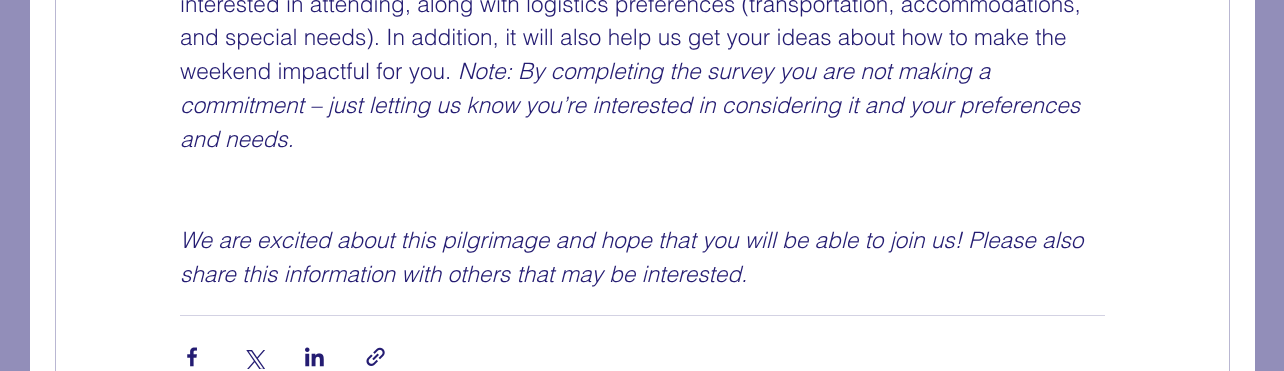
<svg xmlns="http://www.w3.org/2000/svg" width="1284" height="371">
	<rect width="100%" height="100%" fill="#928EB9" />
	<rect x="30" y="0" width="1225" height="371" fill="#FFFFFF" />
	<rect x="55.5" y="-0.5" width="1174" height="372" fill="none" stroke="#B9B7D2" />
	<g font-family="helvetica" font-size="22.5" font-weight="300" fill="#241C72">
		<text x="180" y="12">interested in attending, along with logistics preferences (transportation, accommodations,</text>
		<text x="180" y="45">and special needs). In addition, it will also help us get your ideas about how to make the</text>
		<text x="180" y="79">weekend impactful for you.</text>
	</g>
	<g font-family="helvetica" font-size="22.5" font-weight="300" font-style="italic" fill="#241C72">
		<text x="458" y="79">Note: By completing the survey you are not making a</text>
		<text x="180" y="113">commitment – just letting us know you’re interested in considering it and your preferences</text>
		<text x="180" y="147">and needs.</text>
		<text x="180" y="248">We are excited about this pilgrimage and hope that you will be able to join us! Please also</text>
		<text x="180" y="282">share this information with others that may be interested.</text>
	</g>
	<rect x="180" y="315" width="925" height="1" fill="#D3D2E3" />
	<image x="187" y="347" width="10" height="20" href="assets/img1.png" />
	<image x="246" y="350" width="19" height="19" href="assets/img2.png" />
	<image x="305" y="347" width="19" height="20" href="assets/img3.png" />
	<image x="366" y="347" width="19" height="19" href="assets/img4.png" />
</svg>
